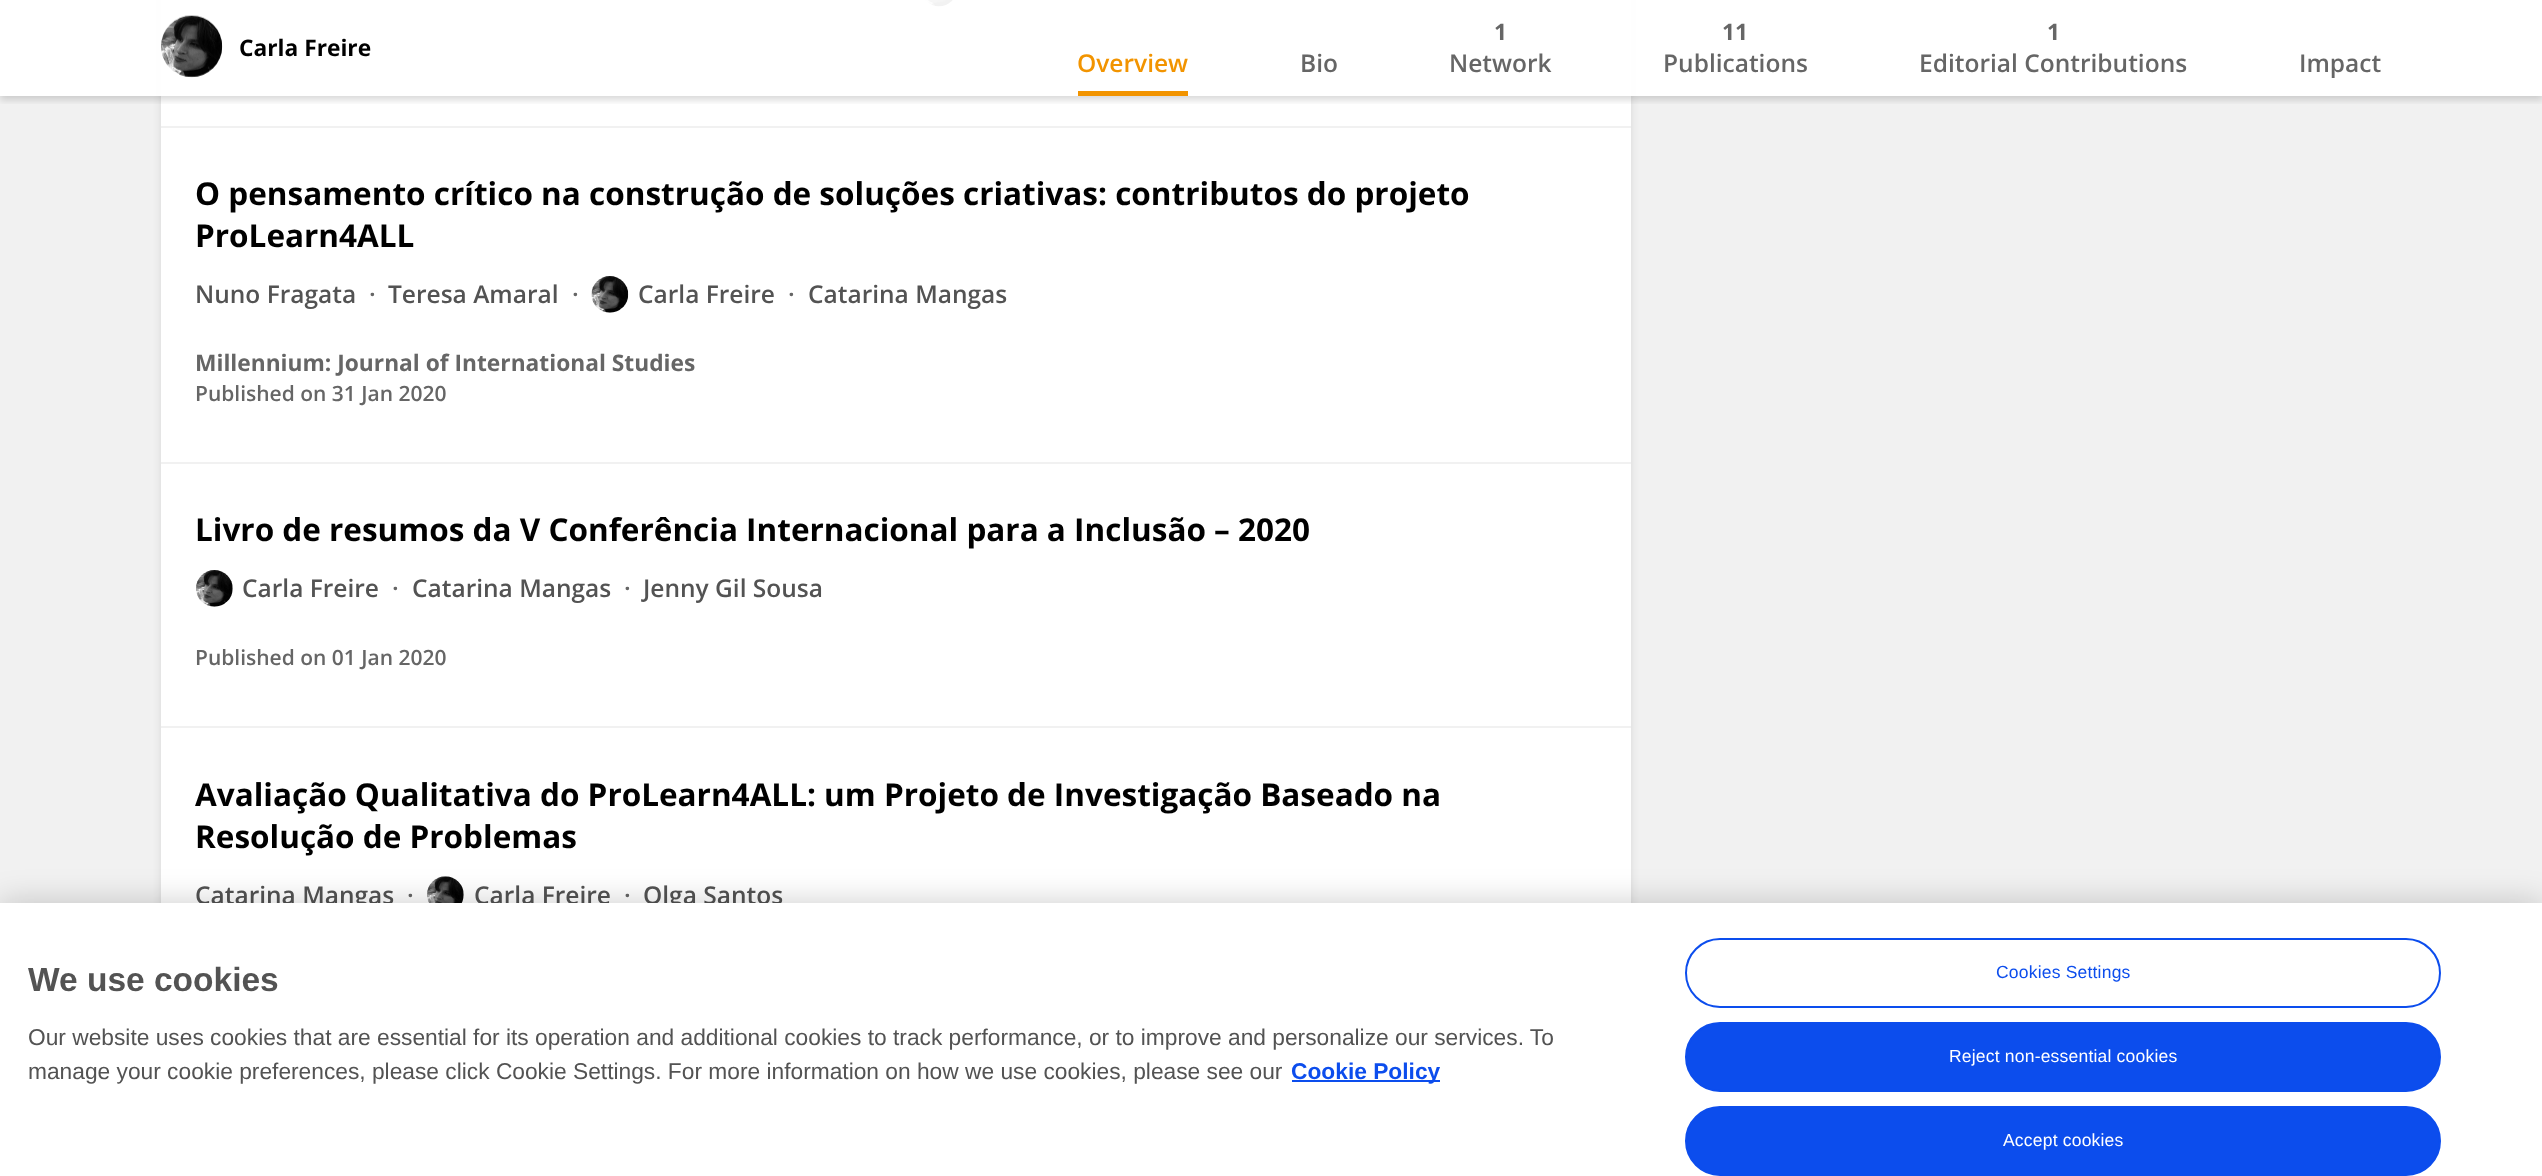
<svg xmlns="http://www.w3.org/2000/svg" width="2542" height="1176">
	<defs>
		<clipPath id="clip1"><rect x="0" y="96" width="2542" height="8" /></clipPath>
	</defs>
	<rect width="100%" height="100%" fill="#F1F1F1" />
	<rect x="161" y="-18" width="1470" height="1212" rx="4" fill="#000000" fill-opacity="0.1" filter="blur(4.5px)" />
	<rect x="161" y="0" width="1470" height="903" fill="#FFFFFF" />
	<image x="925" y="0" width="28" height="7" href="assets/img2.png" />
	<g clip-path="url(#clip1)">
		<rect x="0" y="4" width="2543" height="96" fill="#000000" fill-opacity="0.15" filter="blur(3.5px)" />
	</g>
	<rect x="0" y="0" width="2542" height="96" fill="#FFFFFF" fill-opacity="0.95" />
	<image x="161" y="15" width="62" height="63" href="assets/img1.png" />
	<text x="239" y="56" font-family="Open Sans" font-size="22.75" font-weight="700" fill="#000000">Carla Freire</text>
	<rect x="1078" y="91" width="110" height="5" fill="#F29400" />
	<text x="1077" y="72" font-family="Open Sans" font-size="24.5" font-weight="600" fill="#F29400">Overview</text>
	<text x="1300" y="72" font-family="Open Sans" font-size="24.5" font-weight="600" fill="#666666">Bio</text>
	<text x="1494" y="40" font-family="Open Sans" font-size="22.75" font-weight="700" fill="#666666">1</text>
	<text x="1449" y="72" font-family="Open Sans" font-size="24.5" font-weight="600" fill="#666666">Network</text>
	<text x="1722" y="40" font-family="Open Sans" font-size="22.75" font-weight="700" fill="#666666">11</text>
	<text x="1663" y="72" font-family="Open Sans" font-size="24.5" font-weight="600" fill="#666666">Publications</text>
	<text x="2047" y="40" font-family="Open Sans" font-size="22.75" font-weight="700" fill="#666666">1</text>
	<g font-family="Open Sans" font-size="24.5" font-weight="600" fill="#666666">
		<text x="1919" y="72">Editorial Contributions</text>
		<text x="2299" y="72">Impact</text>
	</g>
	<rect x="161" y="126" width="1470" height="2" fill="#F1F1F1" />
	<rect x="161" y="462" width="1470" height="2" fill="#F1F1F1" />
	<g font-family="Open Sans" font-size="31.5" font-weight="700" fill="#000000">
		<text x="195" y="205">O pensamento crítico na construção de soluções criativas: contributos do projeto</text>
		<text x="195" y="247">ProLearn4ALL</text>
	</g>
	<text x="195" y="303" font-family="Open Sans" font-size="24.5" font-weight="600" fill="#535353">Nuno Fragata</text>
	<text x="369" y="303" font-family="Open Sans" font-size="24.5" font-weight="600" fill="#666666">·</text>
	<text x="388" y="303" font-family="Open Sans" font-size="24.5" font-weight="600" fill="#535353">Teresa Amaral</text>
	<text x="572" y="303" font-family="Open Sans" font-size="24.5" font-weight="600" fill="#666666">·</text>
	<image x="591" y="276" width="38" height="37" href="assets/img3.png" />
	<text x="638" y="303" font-family="Open Sans" font-size="24.5" font-weight="600" fill="#535353">Carla Freire</text>
	<text x="788" y="303" font-family="Open Sans" font-size="24.5" font-weight="600" fill="#666666">·</text>
	<text x="808" y="303" font-family="Open Sans" font-size="24.5" font-weight="600" fill="#535353">Catarina Mangas</text>
	<text x="195" y="371" font-family="Open Sans" font-size="22.75" font-weight="700" fill="#666666">Millennium: Journal of International Studies</text>
	<text x="195" y="401" font-family="Open Sans" font-size="21" font-weight="600" fill="#666666">Published on 31 Jan 2020</text>
	<rect x="161" y="726" width="1470" height="2" fill="#F1F1F1" />
	<text x="195" y="541" font-family="Open Sans" font-size="31.5" font-weight="700" fill="#000000">Livro de resumos da V Conferência Internacional para a Inclusão – 2020</text>
	<image x="196" y="570" width="37" height="37" href="assets/img4.png" />
	<text x="242" y="597" font-family="Open Sans" font-size="24.5" font-weight="600" fill="#535353">Carla Freire</text>
	<text x="392" y="597" font-family="Open Sans" font-size="24.5" font-weight="600" fill="#666666">·</text>
	<text x="412" y="597" font-family="Open Sans" font-size="24.5" font-weight="600" fill="#535353">Catarina Mangas</text>
	<text x="624" y="597" font-family="Open Sans" font-size="24.5" font-weight="600" fill="#666666">·</text>
	<text x="643" y="597" font-family="Open Sans" font-size="24.5" font-weight="600" fill="#535353">Jenny Gil Sousa</text>
	<text x="195" y="665" font-family="Open Sans" font-size="21" font-weight="600" fill="#666666">Published on 01 Jan 2020</text>
	<g font-family="Open Sans" font-size="31.5" font-weight="700" fill="#000000">
		<text x="195" y="806">Avaliação Qualitativa do ProLearn4ALL: um Projeto de Investigação Baseado na</text>
		<text x="195" y="848">Resolução de Problemas</text>
	</g>
	<text x="195" y="904" font-family="Open Sans" font-size="24.5" font-weight="600" fill="#535353">Catarina Mangas</text>
	<text x="407" y="904" font-family="Open Sans" font-size="24.5" font-weight="600" fill="#666666">·</text>
	<image x="427" y="876" width="37" height="27" href="assets/img5.png" />
	<text x="474" y="904" font-family="Open Sans" font-size="24.5" font-weight="600" fill="#535353">Carla Freire</text>
	<text x="624" y="904" font-family="Open Sans" font-size="24.5" font-weight="600" fill="#666666">·</text>
	<text x="643" y="904" font-family="Open Sans" font-size="24.5" font-weight="600" fill="#535353">Olga Santos</text>
	<rect x="0" y="903" width="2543" height="273" fill="#000000" fill-opacity="0.2" filter="blur(16px)" />
	<rect x="0" y="903" width="2542" height="273" fill="#FFFFFF" />
	<text x="28" y="991" font-family="Liberation Sans" font-size="33.5" font-weight="700" fill="#535353">We use cookies</text>
	<g font-family="Liberation Sans" font-size="22.75" fill="#535353">
		<text x="28" y="1045">Our website uses cookies that are essential for its operation and additional cookies to track performance, or to improve and personalize our services. To</text>
		<text x="28" y="1079">manage your cookie preferences, please click Cookie Settings. For more information on how we use cookies, please see our</text>
	</g>
	<rect x="1292" y="1080" width="148" height="2" fill="#0C4DED" />
	<text x="1291" y="1079" font-family="Liberation Sans" font-size="22.75" font-weight="700" fill="#0C4DED">Cookie Policy</text>
	<rect x="1686" y="939" width="754" height="68" rx="34" fill="none" stroke="#0C4DED" stroke-width="2" />
	<text x="1996" y="978" font-family="Liberation Sans" font-size="17.5" letter-spacing="0.2" fill="#0C4DED">Cookies Settings</text>
	<rect x="1686" y="1023" width="754" height="68" rx="34" fill="#0C4DED" stroke="#0C4DED" stroke-width="2" />
	<text x="1949" y="1062" font-family="Liberation Sans" font-size="17.5" letter-spacing="0.2" fill="#FFFFFF">Reject non-essential cookies</text>
	<rect x="1686" y="1107" width="754" height="68" rx="34" fill="#0C4DED" stroke="#0C4DED" stroke-width="2" />
	<text x="2003" y="1146" font-family="Liberation Sans" font-size="17.5" letter-spacing="0.2" fill="#FFFFFF">Accept cookies</text>
</svg>
